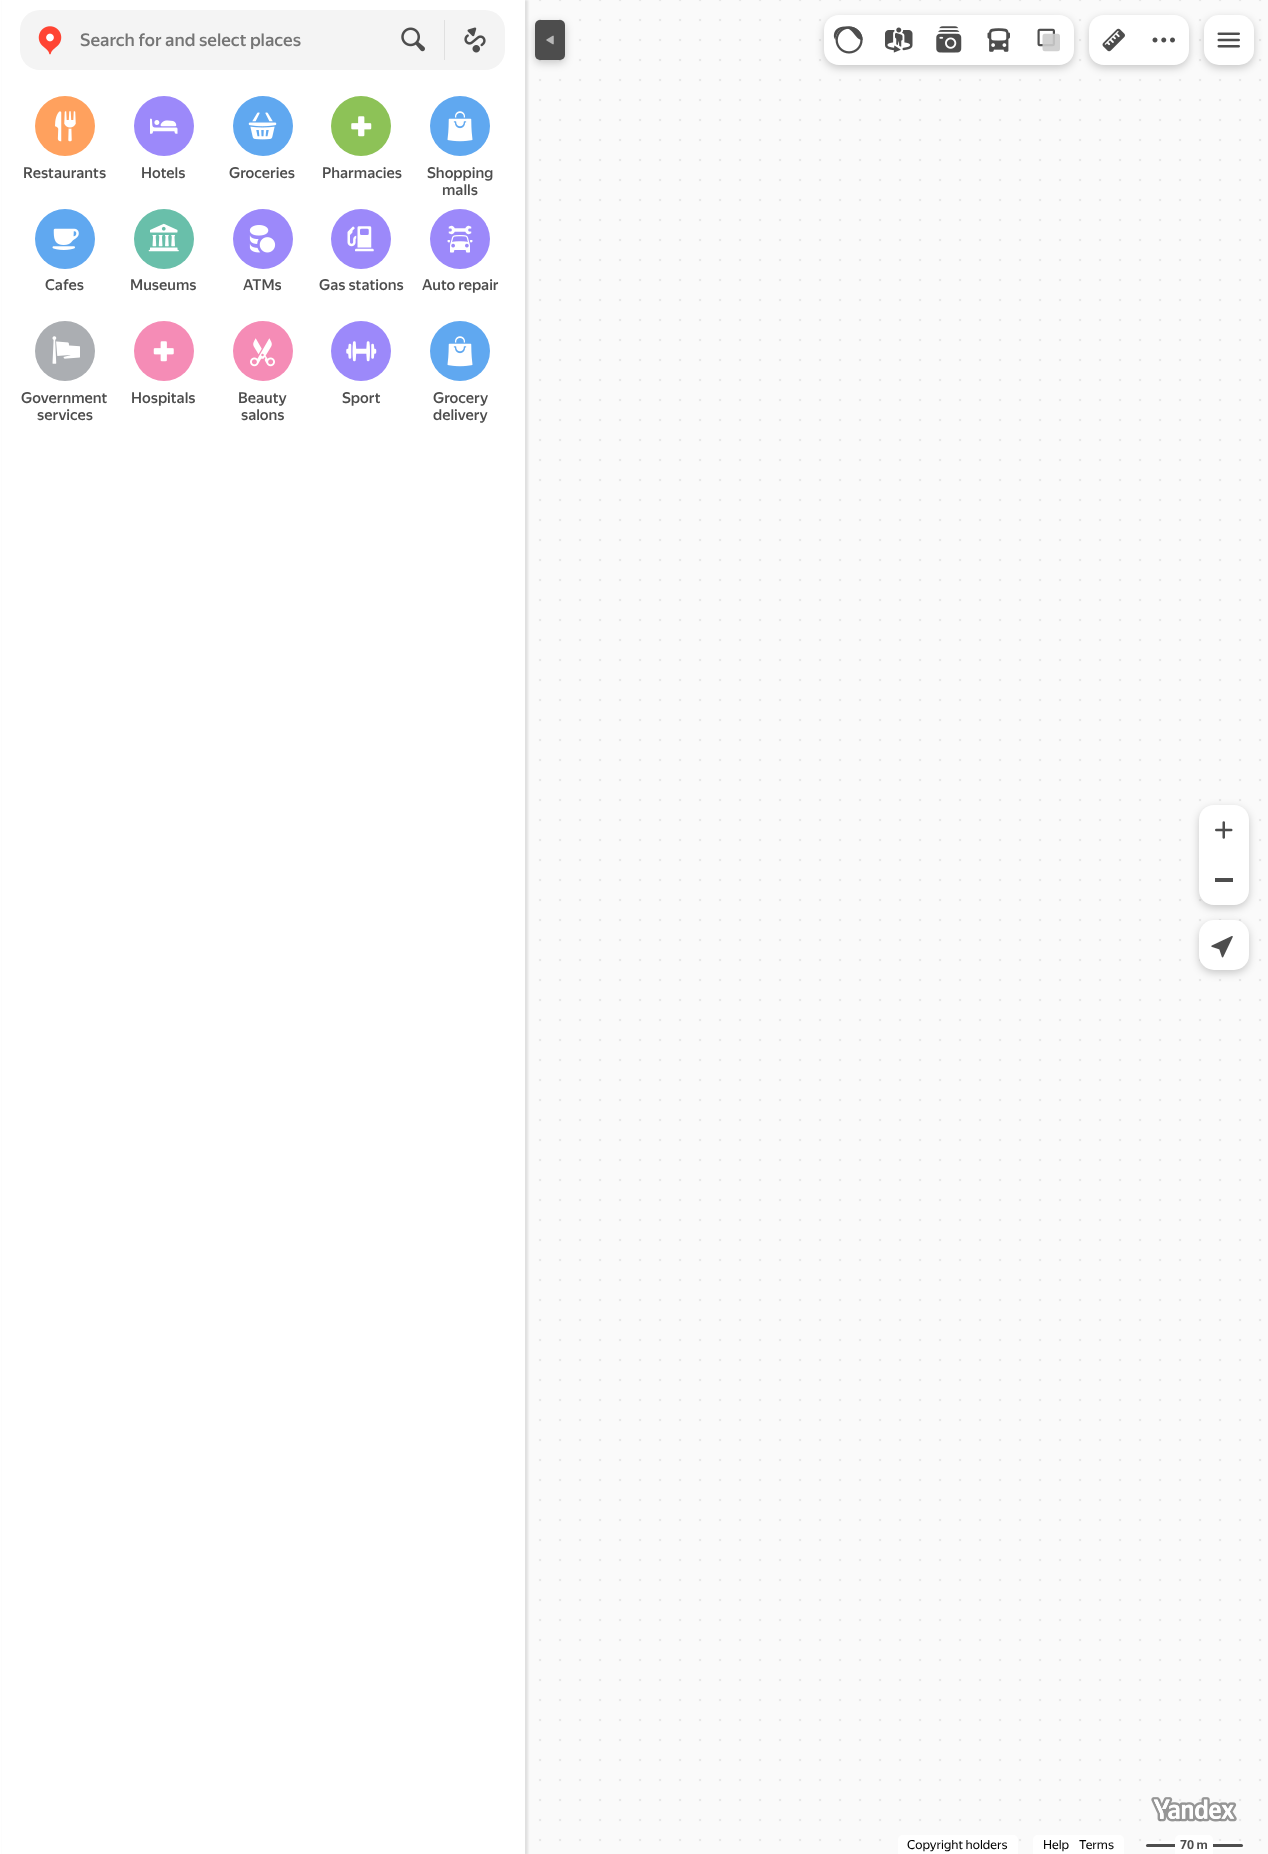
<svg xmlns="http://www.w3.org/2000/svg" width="1268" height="1854">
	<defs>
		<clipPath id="clip1"><rect x="243" y="276" width="38" height="18" /></clipPath>
	</defs>
	<rect width="100%" height="100%" fill="#FFFFFF" />
	<image x="525" y="0" width="743" height="1854" href="assets/img1.png" />
	<rect x="3" y="0" width="525" height="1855" fill="#000000" fill-opacity="0.1" filter="blur(1px)" />
	<rect x="535" y="23" width="30" height="40" rx="5" fill="#000000" fill-opacity="0.2" filter="blur(4px)" />
	<rect x="2" y="0" width="523" height="1854" fill="#FFFFFF" />
	<rect x="20" y="10" width="485" height="60" rx="20" fill="#F4F4F4" />
	<image x="38" y="26" width="24" height="29" href="assets/img2.png" />
	<text x="80" y="46" font-family="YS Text" font-size="17.5" font-weight="500" fill="#757575">Search for and select places</text>
	<image x="401" y="27" width="24" height="25" href="assets/img3.png" />
	<rect x="444" y="20" width="1" height="40" fill="#E0E0E0" />
	<image x="464" y="27" width="22" height="26" href="assets/img4.png" />
	<rect x="824" y="18" width="250" height="50" rx="15" fill="#000000" fill-opacity="0.2" filter="blur(4px)" />
	<path d="M839 15H874V65H839C830.5 65 824 58.5 824 50V30C824 21.5 830.5 15 839 15Z" fill="#FFFFFF" />
	<image x="833" y="26" width="30" height="28" href="assets/img5.png" />
	<rect x="874" y="15" width="150" height="50" fill="#FFFFFF" />
	<image x="885" y="27" width="28" height="26" href="assets/img6.png" />
	<path d="M1024 15H1059C1067.5 15 1074 21.5 1074 30V50C1074 58.5 1067.5 65 1059 65H1024Z" fill="#FFFFFF" />
	<image x="1037" y="28" width="23" height="24" href="assets/img7.png" />
	<image x="936" y="26" width="26" height="27" href="assets/img8.png" />
	<image x="987" y="28" width="23" height="24" href="assets/img9.png" />
	<rect x="1089" y="18" width="100" height="50" rx="15" fill="#000000" fill-opacity="0.2" filter="blur(4px)" />
	<path d="M1104 15H1139V65H1104C1095.5 65 1089 58.5 1089 50V30C1089 21.5 1095.5 15 1104 15Z" fill="#FFFFFF" />
	<image x="1102" y="28" width="23" height="24" href="assets/img10.png" />
	<path d="M1139 15H1174C1182.5 15 1189 21.5 1189 30V50C1189 58.5 1182.5 65 1174 65H1139Z" fill="#FFFFFF" />
	<image x="1152" y="37" width="23" height="6" href="assets/img11.png" />
	<rect x="1204" y="18" width="50" height="50" rx="15" fill="#000000" fill-opacity="0.2" filter="blur(4px)" />
	<rect x="1204" y="15" width="50" height="50" rx="15" fill="#FFFFFF" />
	<image x="1217" y="32" width="23" height="16" href="assets/img12.png" />
	<rect x="1199" y="808" width="50" height="100" rx="15" fill="#000000" fill-opacity="0.2" filter="blur(4px)" />
	<path d="M1214 805H1234C1242.5 805 1249 811.5 1249 820V855H1199V820C1199 811.5 1205.5 805 1214 805Z" fill="#FFFFFF" />
	<image x="1215" y="821" width="18" height="18" href="assets/img13.png" />
	<path d="M1199 855H1249V890C1249 898.5 1242.5 905 1234 905H1214C1205.5 905 1199 898.5 1199 890Z" fill="#FFFFFF" />
	<rect x="1215" y="878" width="18" height="4" fill="#4D4D4D" />
	<rect x="1199" y="923" width="50" height="50" rx="15" fill="#000000" fill-opacity="0.2" filter="blur(4px)" />
	<rect x="1199" y="920" width="50" height="50" rx="15" fill="#FFFFFF" />
	<image x="1211" y="936" width="22" height="22" href="assets/img14.png" />
	<rect x="535" y="20" width="30" height="40" rx="5" fill="#4D4D4D" />
	<image x="546" y="35" width="8" height="10" href="assets/img15.png" />
	<circle cx="65" cy="126" r="30" fill="#FFA15E" />
	<image x="55" y="111" width="21" height="31" href="assets/img16.png" />
	<text x="23" y="178" font-family="YS Text" font-size="15" font-weight="500" fill="#4D4D4D">Restaurants</text>
	<circle cx="164" cy="126" r="30" fill="#9C89FA" />
	<image x="150" y="118" width="28" height="16" href="assets/img17.png" />
	<text x="141" y="178" font-family="YS Text" font-size="15" font-weight="500" fill="#4D4D4D">Hotels</text>
	<circle cx="263" cy="126" r="30" fill="#60A8F0" />
	<image x="248" y="112" width="29" height="28" href="assets/img18.png" />
	<text x="229" y="178" font-family="YS Text" font-size="15" font-weight="500" fill="#4D4D4D">Groceries</text>
	<circle cx="361" cy="126" r="30" fill="#8DC257" />
	<image x="351" y="116" width="21" height="21" href="assets/img19.png" />
	<text x="322" y="178" font-family="YS Text" font-size="15" font-weight="500" fill="#4D4D4D">Pharmacies</text>
	<circle cx="460" cy="126" r="30" fill="#60A8F0" />
	<image x="447" y="111" width="26" height="31" href="assets/img20.png" />
	<g font-family="YS Text" font-size="15" font-weight="500" fill="#4D4D4D">
		<text x="427" y="178">Shopping</text>
		<text x="442" y="195">malls</text>
	</g>
	<circle cx="65" cy="239" r="30" fill="#60A8F0" />
	<image x="52" y="228" width="27" height="22" href="assets/img21.png" />
	<text x="45" y="290" font-family="YS Text" font-size="15" font-weight="500" fill="#4D4D4D">Cafes</text>
	<circle cx="164" cy="239" r="30" fill="#69BFAA" />
	<image x="148" y="223" width="31" height="29" href="assets/img22.png" />
	<text x="130" y="290" font-family="YS Text" font-size="15" font-weight="500" fill="#4D4D4D">Museums</text>
	<circle cx="263" cy="239" r="30" fill="#9C89FA" />
	<image x="249" y="225" width="27" height="28" href="assets/img23.png" />
	<g clip-path="url(#clip1)">
		<text x="243" y="290" font-family="YS Text" font-size="15" font-weight="500" fill="#4D4D4D">ATMs</text>
	</g>
	<circle cx="361" cy="239" r="30" fill="#9C89FA" />
	<image x="347" y="226" width="27" height="26" href="assets/img24.png" />
	<text x="319" y="290" font-family="YS Text" font-size="15" font-weight="500" fill="#4D4D4D">Gas stations</text>
	<circle cx="460" cy="239" r="30" fill="#9C89FA" />
	<image x="447" y="225" width="26" height="28" href="assets/img25.png" />
	<text x="422" y="290" font-family="YS Text" font-size="15" font-weight="500" fill="#4D4D4D">Auto repair</text>
	<circle cx="65" cy="351" r="30" fill="#ABAEB2" />
	<image x="52" y="336" width="28" height="28" href="assets/img26.png" />
	<g font-family="YS Text" font-size="15" font-weight="500" fill="#4D4D4D">
		<text x="21" y="403">Government</text>
		<text x="37" y="420">services</text>
	</g>
	<circle cx="164" cy="351" r="30" fill="#F58CB6" />
	<image x="153" y="341" width="21" height="21" href="assets/img27.png" />
	<text x="131" y="403" font-family="YS Text" font-size="15" font-weight="500" fill="#4D4D4D">Hospitals</text>
	<circle cx="263" cy="351" r="30" fill="#F58CB6" />
	<image x="250" y="338" width="25" height="29" href="assets/img28.png" />
	<g font-family="YS Text" font-size="15" font-weight="500" fill="#4D4D4D">
		<text x="238" y="403">Beauty</text>
		<text x="241" y="420">salons</text>
	</g>
	<circle cx="361" cy="351" r="30" fill="#9C89FA" />
	<image x="346" y="341" width="31" height="21" href="assets/img29.png" />
	<text x="342" y="403" font-family="YS Text" font-size="15" font-weight="500" fill="#4D4D4D">Sport</text>
	<circle cx="460" cy="351" r="30" fill="#60A8F0" />
	<image x="447" y="336" width="26" height="31" href="assets/img20.png" />
	<g font-family="YS Text" font-size="15" font-weight="500" fill="#4D4D4D">
		<text x="433" y="403">Grocery</text>
		<text x="433" y="420">delivery</text>
	</g>
	<image x="1151" y="1797" width="86" height="25" href="assets/img30.png" />
	<path d="M903 1835H1013C1016 1835 1018 1837 1018 1840V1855H898V1840C898 1837 900 1835 903 1835Z" fill="#FFFFFF" />
	<text x="907" y="1849" font-family="YS Text" font-size="12.5" fill="#000000">Copyright holders</text>
	<path d="M1038 1835H1119C1122 1835 1124 1837 1124 1840V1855H1033V1840C1033 1837 1035 1835 1038 1835Z" fill="#FFFFFF" />
	<g font-family="YS Text" font-size="12.5" fill="#000000">
		<text x="1043" y="1849">Help</text>
		<text x="1079" y="1849">Terms</text>
	</g>
	<rect x="1144" y="1841" width="101" height="8" rx="4" fill="#FDFDFD" />
	<rect x="1146" y="1844" width="97" height="3" rx="1.5" fill="#4D4D4D" />
	<path d="M1180 1835H1208C1211 1835 1213 1837 1213 1840V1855H1175V1840C1175 1837 1177 1835 1180 1835Z" fill="#FFFFFF" />
	<text x="1180" y="1849" font-family="YS Text" font-size="12.5" font-weight="700" fill="#4D4D4D">70 m</text>
</svg>
